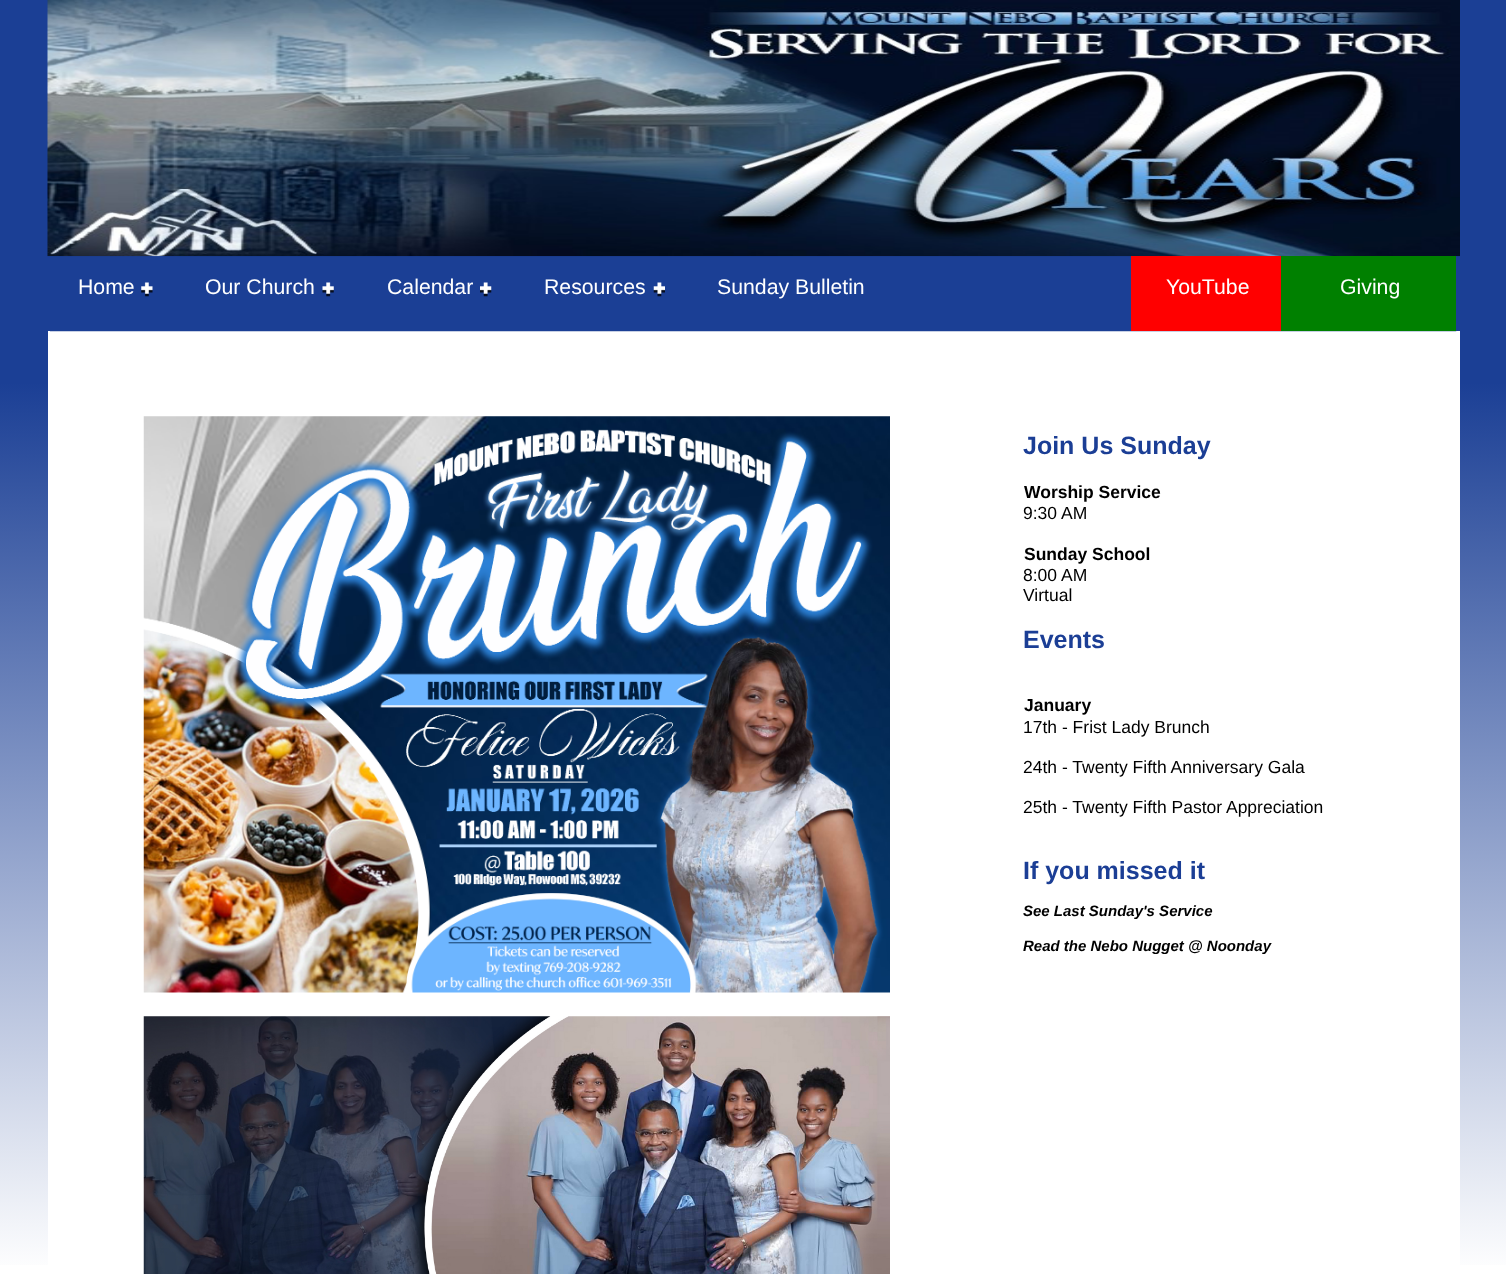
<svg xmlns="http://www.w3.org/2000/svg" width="1506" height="1274">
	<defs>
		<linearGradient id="g1" gradientUnits="userSpaceOnUse" x1="753" y1="0" x2="753" y2="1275"><stop offset="0" stop-color="#1B3F95" /><stop offset="0.3" stop-color="#1B3F95" /><stop offset="1" stop-color="#FFFFFF" /></linearGradient>
	</defs>
	<rect width="100%" height="100%" fill="#FFFFFF" />
	<rect x="0" y="0" width="1506" height="1265" fill="url(#g1)" />
	<image x="47" y="0" width="1413" height="257" href="assets/img1.png" />
	<rect x="48" y="331" width="1412" height="934" fill="#FFFFFF" />
	<image x="50" y="331" width="1407" height="1" href="assets/img2.png" />
	<text x="78" y="294" font-family="Liberation Sans" font-size="21.25" fill="#FFFFFF">Home</text>
	<image x="141" y="282" width="12" height="15" href="assets/img3.png" />
	<text x="205" y="294" font-family="Liberation Sans" font-size="21.25" fill="#FFFFFF">Our Church</text>
	<image x="322" y="282" width="12" height="15" href="assets/img4.png" />
	<text x="387" y="294" font-family="Liberation Sans" font-size="21.25" fill="#FFFFFF">Calendar</text>
	<image x="480" y="282" width="12" height="15" href="assets/img5.png" />
	<text x="544" y="294" font-family="Liberation Sans" font-size="21.25" fill="#FFFFFF">Resources</text>
	<image x="653" y="282" width="12" height="15" href="assets/img6.png" />
	<text x="717" y="294" font-family="Liberation Sans" font-size="21.25" fill="#FFFFFF">Sunday Bulletin</text>
	<rect x="1131" y="256" width="150" height="75" fill="#FF0000" />
	<text x="1166" y="294" font-family="Liberation Sans" font-size="21.25" fill="#FFFFFF">YouTube</text>
	<rect x="1281" y="256" width="175" height="75" fill="#008000" />
	<text x="1340" y="294" font-family="Liberation Sans" font-size="21.25" fill="#FFFFFF">Giving</text>
	<image x="143" y="416" width="747" height="577" href="assets/img7.png" />
	<image x="143" y="1016" width="747" height="258" href="assets/img8.png" />
	<text x="1023" y="454" font-family="Liberation Sans" font-size="25" font-weight="700" fill="#1B3E95">Join Us Sunday</text>
	<text x="1024" y="498" font-family="Liberation Sans" font-size="17.5" font-weight="700" fill="#000000">Worship Service</text>
	<text x="1023" y="519" font-family="Liberation Sans" font-size="17.5" fill="#000000">9:30 AM</text>
	<text x="1024" y="560" font-family="Liberation Sans" font-size="17.5" font-weight="700" fill="#000000">Sunday School</text>
	<g font-family="Liberation Sans" font-size="17.5" fill="#000000">
		<text x="1023" y="581">8:00 AM</text>
		<text x="1023" y="601">Virtual</text>
	</g>
	<text x="1023" y="648" font-family="Liberation Sans" font-size="25" font-weight="700" fill="#1B3E95">Events</text>
	<text x="1024" y="711" font-family="Liberation Sans" font-size="17.5" font-weight="700" fill="#000000">January</text>
	<g font-family="Liberation Sans" font-size="17.5" fill="#000000">
		<text x="1023" y="733">17th - Frist Lady Brunch</text>
		<text x="1023" y="773">24th - Twenty Fifth Anniversary Gala</text>
		<text x="1023" y="813">25th - Twenty Fifth Pastor Appreciation</text>
	</g>
	<text x="1023" y="879" font-family="Liberation Sans" font-size="25" font-weight="700" fill="#1B3E95">If you missed it</text>
	<g font-family="Liberation Sans" font-size="15" font-weight="700" font-style="italic" fill="#000000">
		<text x="1023" y="916">See Last Sunday's Service</text>
		<text x="1023" y="951">Read the Nebo Nugget @ Noonday</text>
	</g>
</svg>
